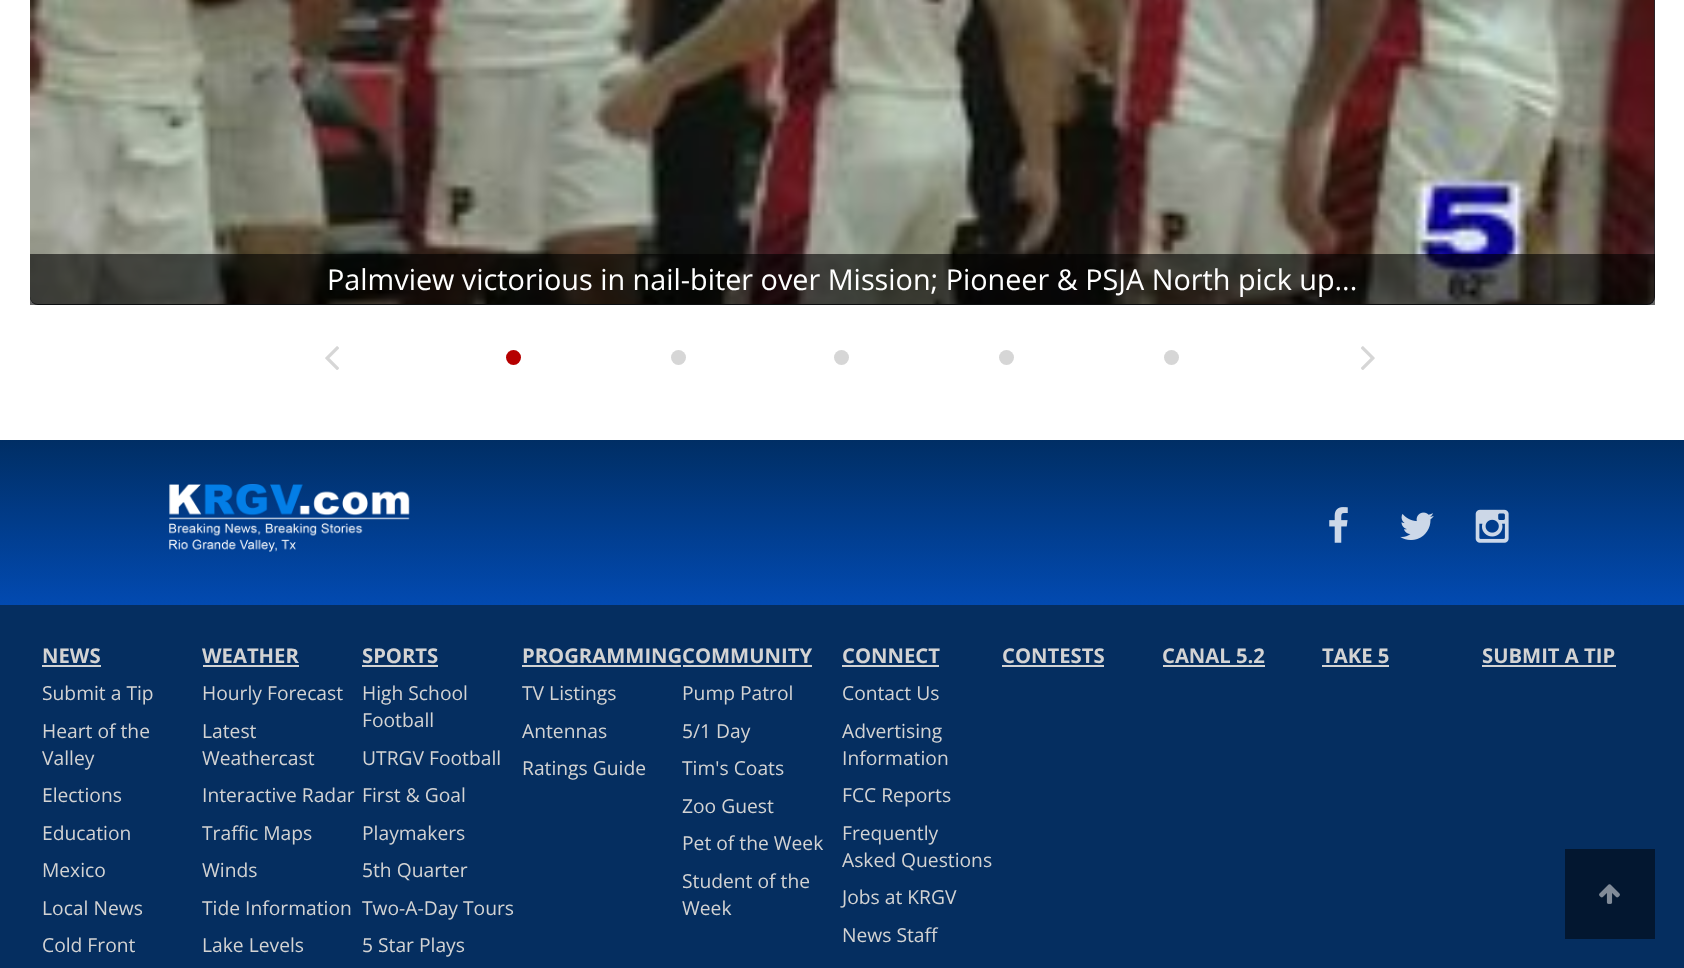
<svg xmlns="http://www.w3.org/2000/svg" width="1684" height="968">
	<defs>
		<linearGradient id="g1" gradientUnits="userSpaceOnUse" x1="842" y1="439" x2="842" y2="605"><stop offset="0" stop-color="#002E64" /><stop offset="1" stop-color="#024AB1" /></linearGradient>
	</defs>
	<rect width="100%" height="100%" fill="#FFFFFF" />
	<rect x="30" y="-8" width="1625" height="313" rx="8" fill="#21262C" />
	<image x="30" y="0" width="1625" height="304" href="assets/img1.png" />
	<rect x="30" y="254" width="1625" height="51" fill="#000000" fill-opacity="0.6" />
	<text x="327" y="290" font-family="Open Sans" font-size="28.8" fill="#FFFFFF">Palmview victorious in nail-biter over Mission; Pioneer &amp; PSJA North pick up...</text>
	<image x="325" y="346" width="14" height="24" href="assets/img2.png" />
	<circle cx="513.5" cy="357.5" r="7.5" fill="#B60000" />
	<circle cx="678.5" cy="357.5" r="7.5" fill="#D6D6D6" />
	<circle cx="841.5" cy="357.5" r="7.5" fill="#D6D6D6" />
	<circle cx="1006.5" cy="357.5" r="7.5" fill="#D6D6D6" />
	<circle cx="1171.5" cy="357.5" r="7.5" fill="#D6D6D6" />
	<image x="1361" y="346" width="14" height="24" href="assets/img3.png" />
	<rect x="0" y="605" width="1684" height="363" fill="#052E60" />
	<rect x="0" y="440" width="1684" height="165" fill="url(#g1)" />
	<image x="169" y="484" width="241" height="68" href="assets/img4.png" />
	<image x="1329" y="507" width="19" height="36" href="assets/img5.png" />
	<image x="1400" y="512" width="34" height="28" href="assets/img6.png" />
	<image x="1475" y="509" width="34" height="34" href="assets/img7.png" />
	<text x="42" y="663" font-family="Open Sans" font-size="20.25" font-weight="700" fill="#D3D3D3">NEWS</text>
	<rect x="42" y="665" width="59" height="2" fill="#D3D3D3" />
	<g font-family="Open Sans" font-size="19.25" fill="#D3D3D3">
		<text x="42" y="700">Submit a Tip</text>
		<text x="42" y="738">Heart of the</text>
		<text x="42" y="765">Valley</text>
		<text x="42" y="802">Elections</text>
		<text x="42" y="840">Education</text>
		<text x="42" y="877">Mexico</text>
		<text x="42" y="915">Local News</text>
		<text x="42" y="952">Cold Front</text>
	</g>
	<text x="202" y="663" font-family="Open Sans" font-size="20.25" font-weight="700" fill="#D3D3D3">WEATHER</text>
	<rect x="203" y="665" width="96" height="2" fill="#D3D3D3" />
	<g font-family="Open Sans" font-size="19.25" fill="#D3D3D3">
		<text x="202" y="700">Hourly Forecast</text>
		<text x="202" y="738">Latest</text>
		<text x="202" y="765">Weathercast</text>
		<text x="202" y="802">Interactive Radar</text>
		<text x="202" y="840">Traffic Maps</text>
		<text x="202" y="877">Winds</text>
		<text x="202" y="915">Tide Information</text>
		<text x="202" y="952">Lake Levels</text>
	</g>
	<text x="362" y="663" font-family="Open Sans" font-size="20.25" font-weight="700" fill="#D3D3D3">SPORTS</text>
	<rect x="362" y="665" width="76" height="2" fill="#D3D3D3" />
	<g font-family="Open Sans" font-size="19.25" fill="#D3D3D3">
		<text x="362" y="700">High School</text>
		<text x="362" y="727">Football</text>
		<text x="362" y="765">UTRGV Football</text>
		<text x="362" y="802">First &amp; Goal</text>
		<text x="362" y="840">Playmakers</text>
		<text x="362" y="877">5th Quarter</text>
		<text x="362" y="915">Two-A-Day Tours</text>
		<text x="362" y="952">5 Star Plays</text>
	</g>
	<text x="522" y="663" font-family="Open Sans" font-size="20.25" font-weight="700" fill="#D3D3D3">PROGRAMMING</text>
	<rect x="522" y="665" width="159" height="2" fill="#D3D3D3" />
	<g font-family="Open Sans" font-size="19.25" fill="#D3D3D3">
		<text x="522" y="700">TV Listings</text>
		<text x="522" y="738">Antennas</text>
		<text x="522" y="775">Ratings Guide</text>
	</g>
	<text x="682" y="663" font-family="Open Sans" font-size="20.25" font-weight="700" fill="#D3D3D3">COMMUNITY</text>
	<rect x="683" y="665" width="129" height="2" fill="#D3D3D3" />
	<g font-family="Open Sans" font-size="19.25" fill="#D3D3D3">
		<text x="682" y="700">Pump Patrol</text>
		<text x="682" y="738">5/1 Day</text>
		<text x="682" y="775">Tim's Coats</text>
		<text x="682" y="813">Zoo Guest</text>
		<text x="682" y="850">Pet of the Week</text>
		<text x="682" y="888">Student of the</text>
		<text x="682" y="915">Week</text>
	</g>
	<text x="842" y="663" font-family="Open Sans" font-size="20.25" font-weight="700" fill="#D3D3D3">CONNECT</text>
	<rect x="842" y="665" width="97" height="2" fill="#D3D3D3" />
	<g font-family="Open Sans" font-size="19.25" fill="#D3D3D3">
		<text x="842" y="700">Contact Us</text>
		<text x="842" y="738">Advertising</text>
		<text x="842" y="765">Information</text>
		<text x="842" y="802">FCC Reports</text>
		<text x="842" y="840">Frequently</text>
		<text x="842" y="867">Asked Questions</text>
		<text x="842" y="904">Jobs at KRGV</text>
		<text x="842" y="942">News Staff</text>
	</g>
	<text x="1002" y="663" font-family="Open Sans" font-size="20.25" font-weight="700" fill="#D3D3D3">CONTESTS</text>
	<rect x="1002" y="665" width="102" height="2" fill="#D3D3D3" />
	<text x="1162" y="663" font-family="Open Sans" font-size="20.25" font-weight="700" fill="#D3D3D3">CANAL 5.2</text>
	<rect x="1163" y="665" width="102" height="2" fill="#D3D3D3" />
	<text x="1322" y="663" font-family="Open Sans" font-size="20.25" font-weight="700" fill="#D3D3D3">TAKE 5</text>
	<rect x="1322" y="665" width="67" height="2" fill="#D3D3D3" />
	<text x="1482" y="663" font-family="Open Sans" font-size="20.25" font-weight="700" fill="#D3D3D3">SUBMIT A TIP</text>
	<rect x="1482" y="665" width="134" height="2" fill="#D3D3D3" />
	<rect x="1565" y="849" width="90" height="90" fill="#031730" />
	<image x="1599" y="884" width="21" height="20" href="assets/img8.png" />
</svg>
